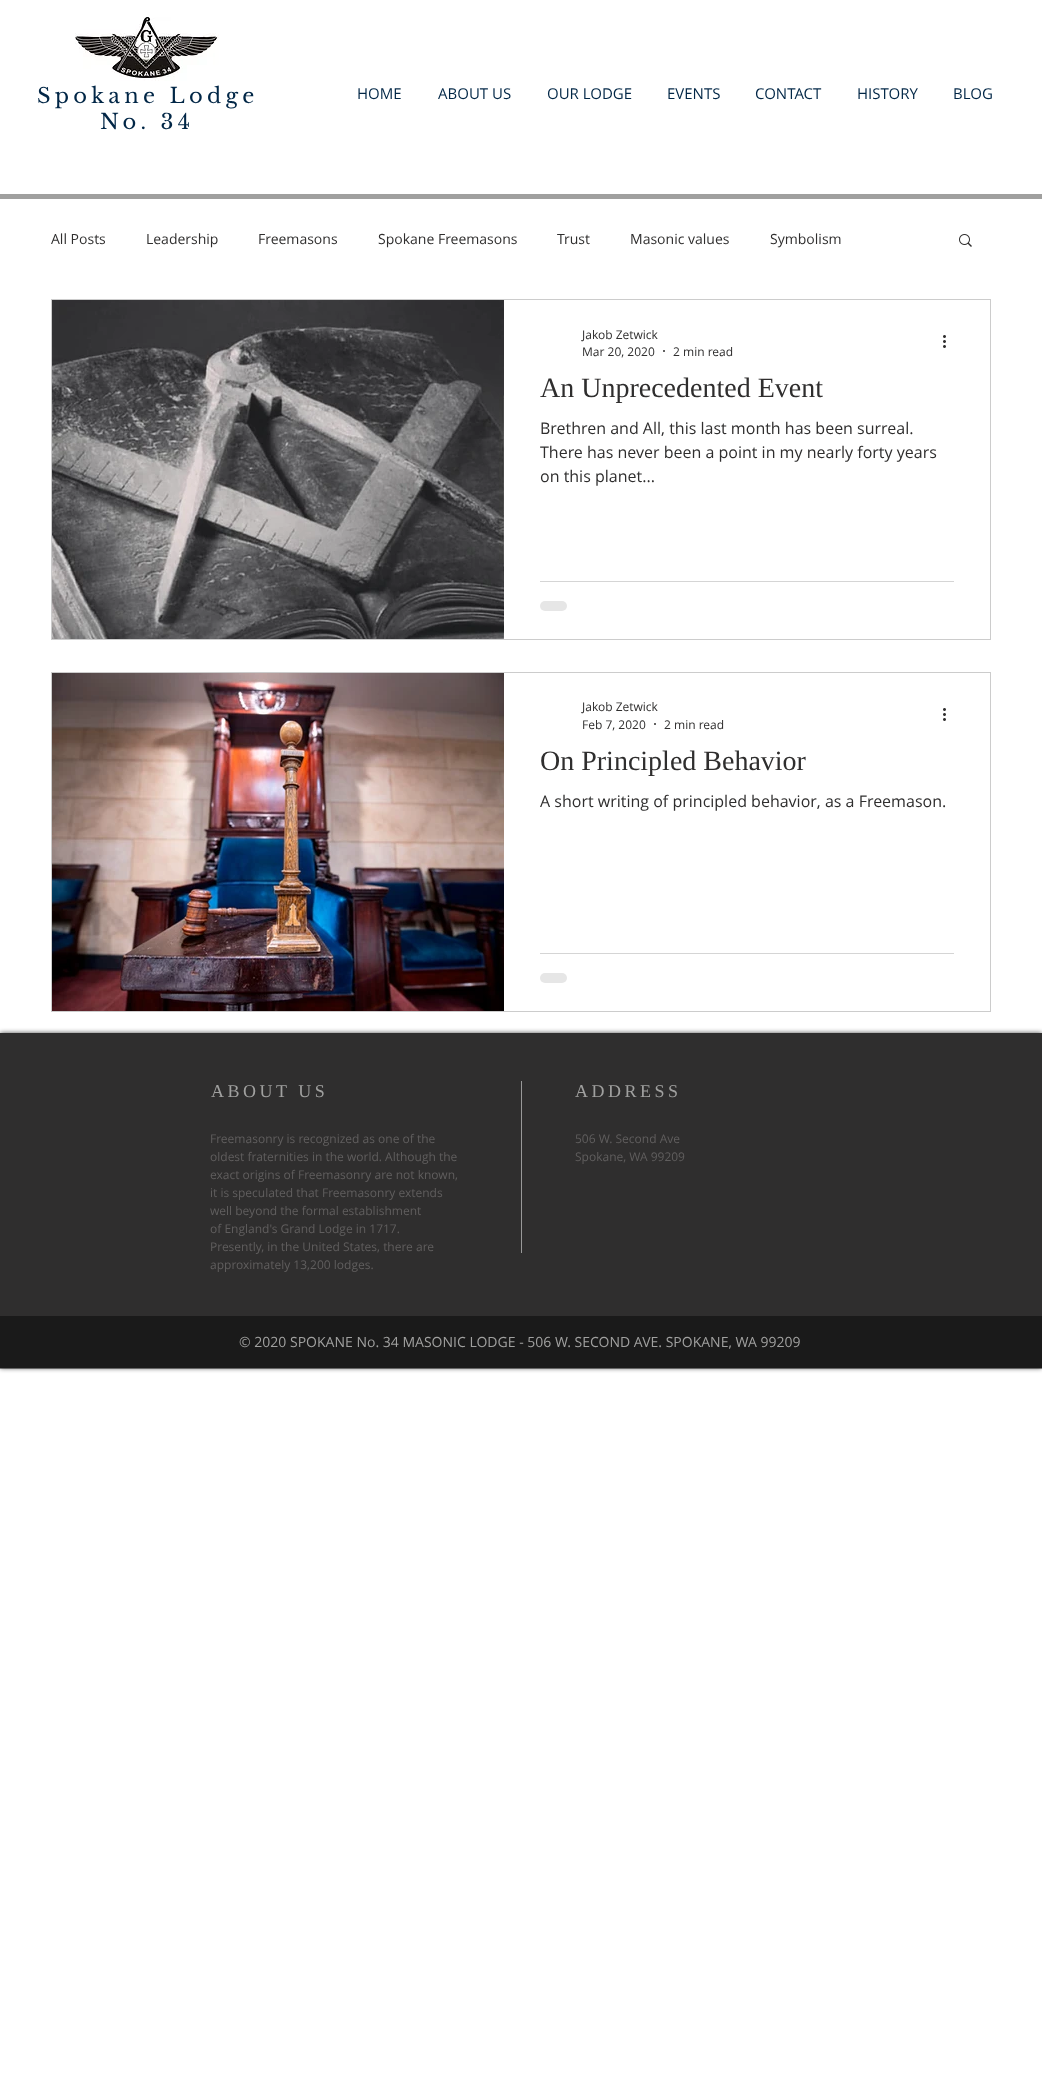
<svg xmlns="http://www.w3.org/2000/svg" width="1042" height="2090">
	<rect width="100%" height="100%" fill="#FFFFFF" />
	<image x="75" y="17" width="144" height="64" href="assets/img1.png" />
	<g font-family="Libre Baskerville" font-size="21" letter-spacing="4.25" fill="#012646">
		<text x="37" y="103">Spokane Lodge</text>
		<text x="100" y="129">No. 34</text>
	</g>
	<g font-family="Open Sans" font-size="15" fill="#012646">
		<text x="357" y="99">HOME</text>
		<text x="438" y="99">ABOUT US</text>
		<text x="547" y="99">OUR LODGE</text>
		<text x="667" y="99">EVENTS</text>
		<text x="755" y="99">CONTACT</text>
		<text x="857" y="99">HISTORY</text>
		<text x="953" y="99">BLOG</text>
	</g>
	<rect x="0" y="194" width="1042" height="5" fill="#A0A09F" />
	<g font-family="Open Sans" font-size="14" fill="#2F2E2E">
		<text x="51" y="244">All Posts</text>
		<text x="146" y="244">Leadership</text>
		<text x="258" y="244">Freemasons</text>
		<text x="378" y="244">Spokane Freemasons</text>
		<text x="557" y="244">Trust</text>
		<text x="630" y="244">Masonic values</text>
		<text x="770" y="244">Symbolism</text>
	</g>
	<image x="959" y="234" width="13" height="13" href="assets/img2.png" />
	<rect x="51.5" y="299.5" width="939" height="340" fill="none" stroke="#CCCCCC" />
	<image x="52" y="300" width="452" height="339" href="assets/img3.png" />
	<g font-family="Open Sans" font-size="12" fill="#2F2E2E">
		<text x="582" y="339">Jakob Zetwick</text>
		<text x="582" y="356">Mar 20, 2020</text>
	</g>
	<circle cx="664" cy="351" r="1" fill="#2F2E2E" />
	<text x="673" y="356" font-family="Open Sans" font-size="12" fill="#2F2E2E">2 min read</text>
	<image x="943" y="335" width="3" height="13" href="assets/img4.png" />
	<text x="540" y="397" font-family="Liberation Serif" font-size="28" fill="#2F2E2E">An Unprecedented Event</text>
	<g font-family="Open Sans" font-size="16" fill="#2F2E2E">
		<text x="540" y="434">Brethren and All, this last month has been surreal.</text>
		<text x="540" y="458">There has never been a point in my nearly forty years</text>
		<text x="540" y="482">on this planet...</text>
	</g>
	<rect x="540" y="581" width="414" height="1" fill="#D5D5D5" />
	<rect x="540" y="601" width="27" height="10" rx="5" fill="#E6E6E6" />
	<rect x="51.5" y="672.5" width="939" height="339" fill="none" stroke="#CCCCCC" />
	<image x="52" y="673" width="452" height="338" href="assets/img5.png" />
	<g font-family="Open Sans" font-size="12" fill="#2F2E2E">
		<text x="582" y="711">Jakob Zetwick</text>
		<text x="582" y="729">Feb 7, 2020</text>
	</g>
	<circle cx="655" cy="724" r="1" fill="#2F2E2E" />
	<text x="664" y="729" font-family="Open Sans" font-size="12" fill="#2F2E2E">2 min read</text>
	<image x="943" y="708" width="3" height="13" href="assets/img4.png" />
	<text x="540" y="770" font-family="Liberation Serif" font-size="28" fill="#2F2E2E">On Principled Behavior</text>
	<text x="540" y="807" font-family="Open Sans" font-size="16" fill="#2F2E2E">A short writing of principled behavior, as a Freemason.</text>
	<rect x="540" y="953" width="414" height="1" fill="#D5D5D5" />
	<rect x="540" y="973" width="27" height="10" rx="5" fill="#E6E6E6" />
	<rect x="0" y="1033" width="1042" height="335" fill="#000000" fill-opacity="0.7" filter="blur(2.5px)" />
	<rect x="0" y="1033" width="1042" height="335" fill="#2F2E2E" />
	<text x="211" y="1097" font-family="Liberation Serif" font-size="18" letter-spacing="3.5" fill="#A0A09F">ABOUT US</text>
	<rect x="521" y="1081" width="1" height="172" fill="#999999" />
	<text x="575" y="1097" font-family="Liberation Serif" font-size="18" letter-spacing="3.5" fill="#A0A09F">ADDRESS</text>
	<g font-family="Open Sans" font-size="12" fill="#605E5E">
		<text x="210" y="1143">Freemasonry is recognized as one of the</text>
		<text x="210" y="1161">oldest fraternities in the world. Although the</text>
		<text x="210" y="1179">exact origins of Freemasonry are not known,</text>
		<text x="210" y="1197">it is speculated that Freemasonry extends</text>
		<text x="210" y="1215">well beyond the formal establishment</text>
		<text x="210" y="1233">of England's Grand Lodge in 1717.</text>
		<text x="210" y="1251">Presently, in the United States, there are</text>
		<text x="210" y="1269">approximately 13,200 lodges.</text>
		<text x="575" y="1143">506 W. Second Ave</text>
		<text x="575" y="1161">Spokane, WA 99209</text>
	</g>
	<rect x="0" y="1316" width="1042" height="53" fill="#000000" fill-opacity="0.43" />
	<text x="239" y="1347" font-family="Open Sans" font-size="14" fill="#A0A09F">© 2020 SPOKANE No. 34 MASONIC LODGE - 506 W. SECOND AVE. SPOKANE, WA 99209</text>
</svg>
